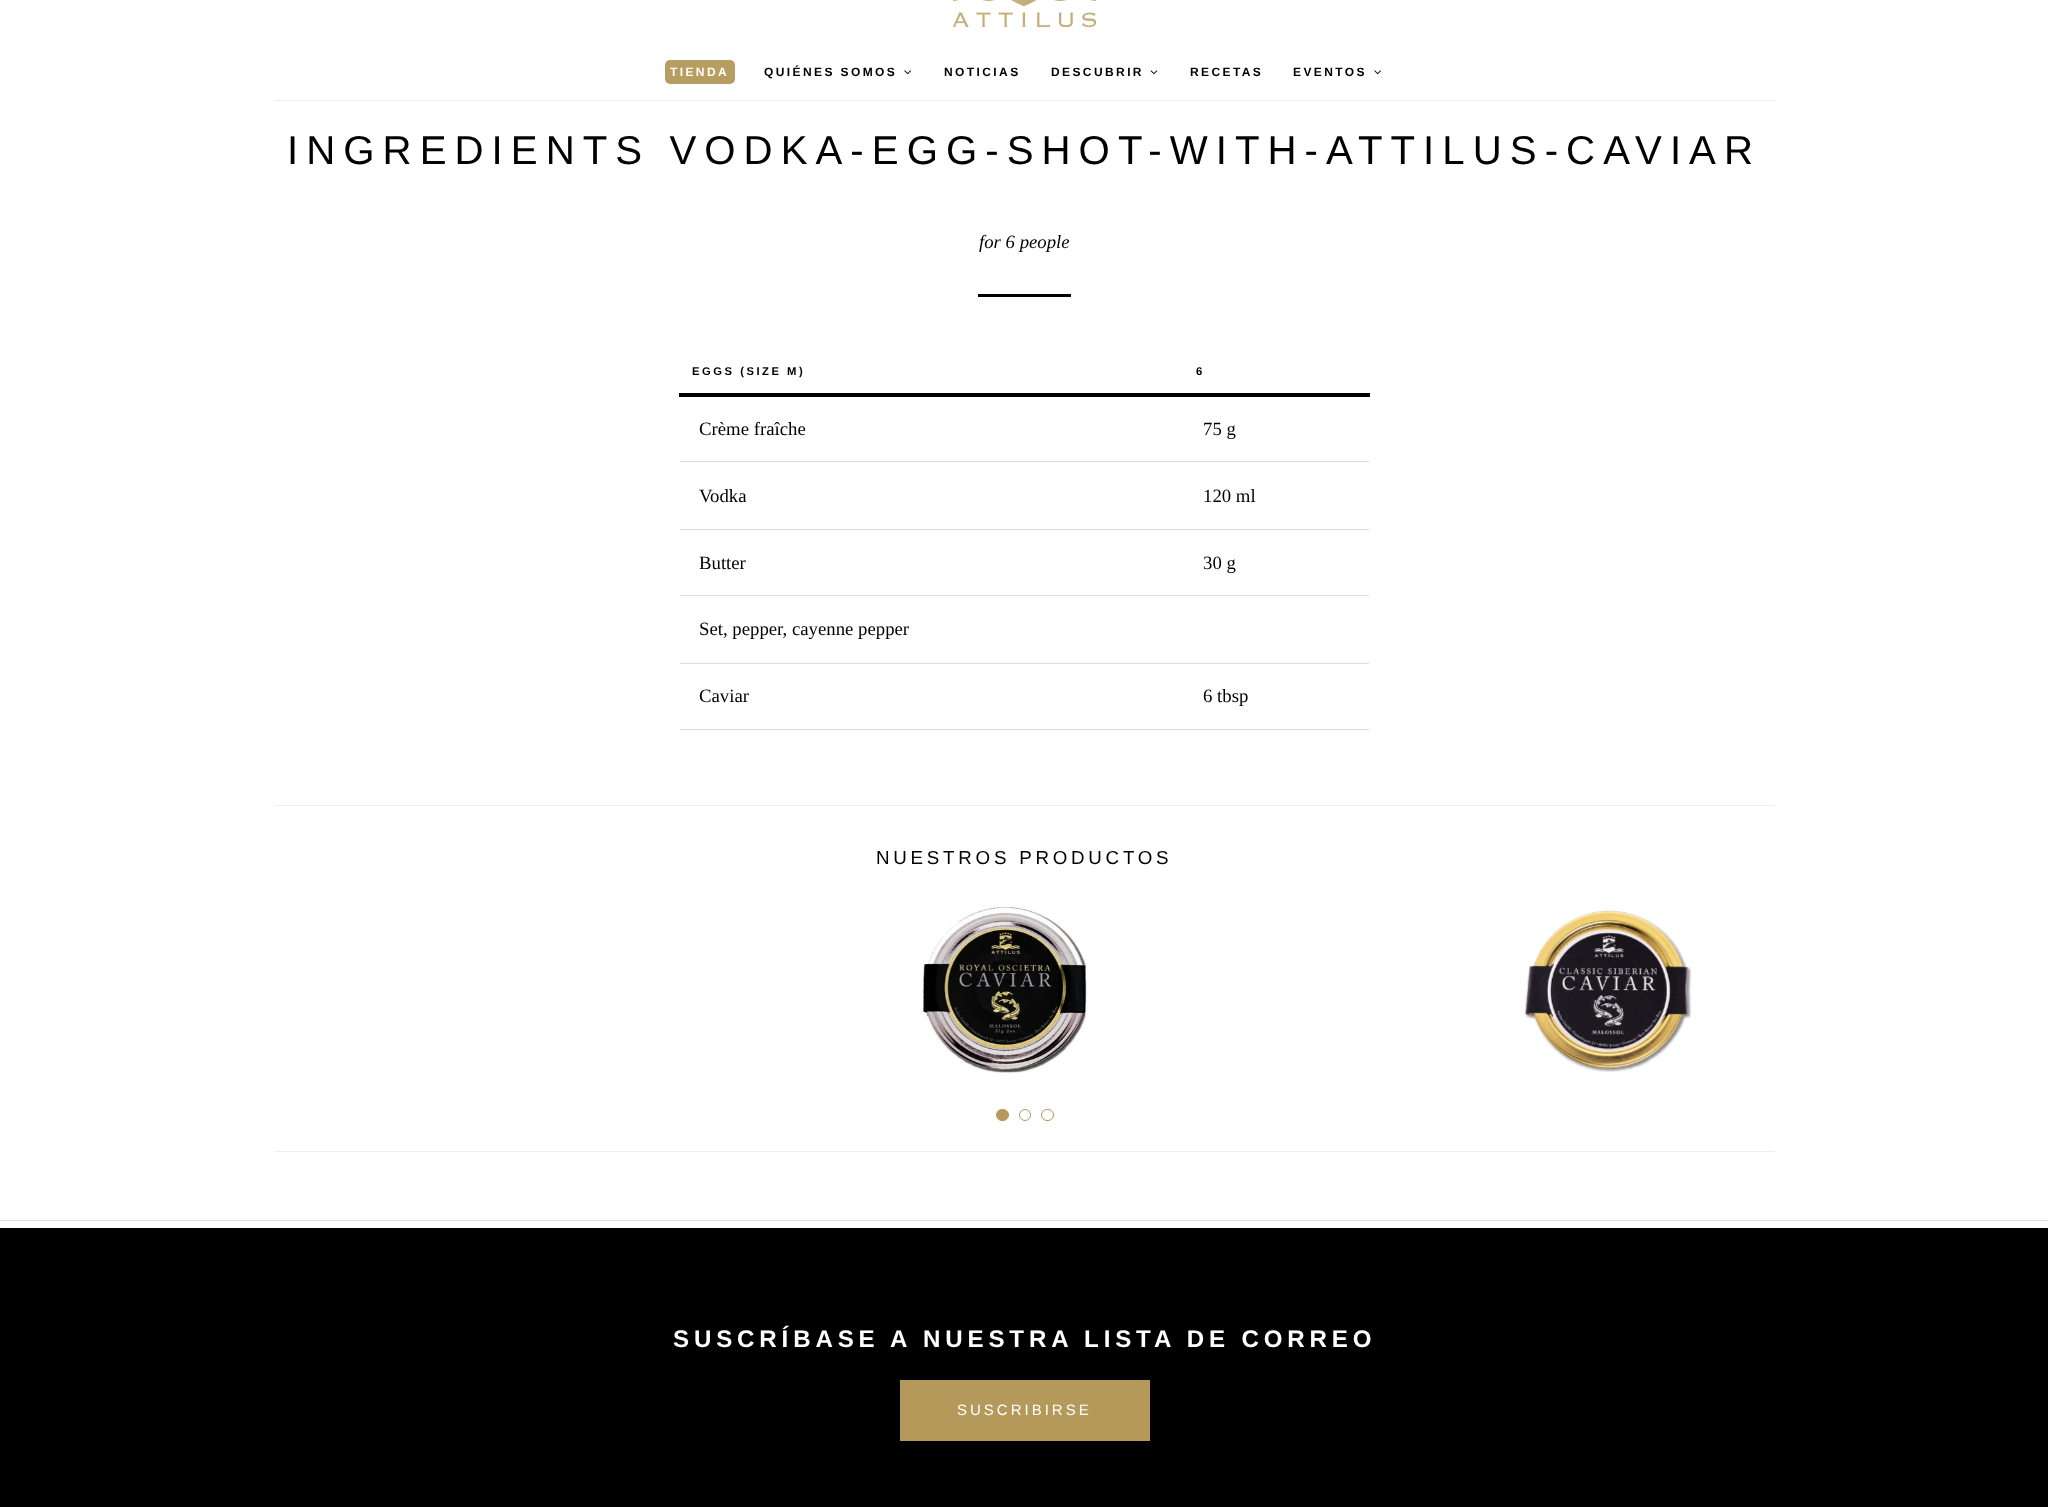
<svg xmlns="http://www.w3.org/2000/svg" width="2048" height="1507">
	<rect width="100%" height="100%" fill="#FFFFFF" />
	<rect x="275" y="100" width="1500" height="1" fill="#EEEEEE" />
	<image x="953" y="0" width="143" height="28" href="assets/img1.png" />
	<rect x="665" y="60" width="70" height="24" rx="5" fill="#B89D61" />
	<text x="670" y="76" font-family="Liberation Sans" font-size="12" font-weight="700" letter-spacing="2.4" fill="#FFFFFF">TIENDA</text>
	<text x="764" y="76" font-family="Liberation Sans" font-size="12" font-weight="700" letter-spacing="2.4" fill="#000000">QUIÉNES SOMOS</text>
	<image x="904" y="70" width="7" height="5" href="assets/img2.png" />
	<g font-family="Liberation Sans" font-size="12" font-weight="700" letter-spacing="2.4" fill="#000000">
		<text x="944" y="76">NOTICIAS</text>
		<text x="1051" y="76">DESCUBRIR</text>
	</g>
	<image x="1150" y="70" width="8" height="5" href="assets/img3.png" />
	<g font-family="Liberation Sans" font-size="12" font-weight="700" letter-spacing="2.4" fill="#000000">
		<text x="1190" y="76">RECETAS</text>
		<text x="1293" y="76">EVENTOS</text>
	</g>
	<image x="1374" y="70" width="7" height="5" href="assets/img2.png" />
	<text x="287" y="164" font-family="Liberation Sans" font-size="40.2" letter-spacing="8.05" fill="#000000">INGREDIENTS VODKA-EGG-SHOT-WITH-ATTILUS-CAVIAR</text>
	<text x="979" y="248" font-family="Liberation Serif" font-size="18.75" font-style="italic" fill="#000000">for 6 people</text>
	<rect x="978" y="294" width="93" height="3" fill="#000000" />
	<text x="692" y="375" font-family="Liberation Sans" font-size="11.25" font-weight="700" letter-spacing="2.5" fill="#000000">EGGS (SIZE M)</text>
	<rect x="679" y="393" width="691" height="4" fill="#000000" />
	<text x="1196" y="375" font-family="Liberation Sans" font-size="11.25" font-weight="700" letter-spacing="2.5" fill="#000000">6</text>
	<text x="699" y="435" font-family="Liberation Serif" font-size="18.75" fill="#000000">Crème fraîche</text>
	<rect x="680" y="461" width="689" height="1" fill="#DDDDDD" />
	<g font-family="Liberation Serif" font-size="18.75" fill="#000000">
		<text x="1203" y="435">75 g</text>
		<text x="699" y="502">Vodka</text>
	</g>
	<rect x="680" y="529" width="689" height="1" fill="#DDDDDD" />
	<g font-family="Liberation Serif" font-size="18.75" fill="#000000">
		<text x="1203" y="502">120 ml</text>
		<text x="699" y="569">Butter</text>
	</g>
	<rect x="680" y="595" width="689" height="1" fill="#DDDDDD" />
	<g font-family="Liberation Serif" font-size="18.75" fill="#000000">
		<text x="1203" y="569">30 g</text>
		<text x="699" y="635">Set, pepper, cayenne pepper</text>
	</g>
	<rect x="680" y="663" width="689" height="1" fill="#DDDDDD" />
	<text x="699" y="702" font-family="Liberation Serif" font-size="18.75" fill="#000000">Caviar</text>
	<rect x="680" y="729" width="689" height="1" fill="#DDDDDD" />
	<text x="1203" y="702" font-family="Liberation Serif" font-size="18.75" fill="#000000">6 tbsp</text>
	<rect x="275" y="805" width="1500" height="1" fill="#EEEEEE" />
	<rect x="275" y="1151" width="1500" height="1" fill="#EEEEEE" />
	<text x="876" y="864" font-family="Liberation Sans" font-size="18.75" letter-spacing="3.75" fill="#000000">NUESTROS PRODUCTOS</text>
	<image x="921" y="905" width="167" height="168" href="assets/img4.png" />
	<image x="1524" y="910" width="168" height="162" href="assets/img5.png" />
	<rect x="996.5" y="1109.5" width="12" height="11" rx="5.5" fill="#B5995A" stroke="#B5995A" />
	<circle cx="1025" cy="1115" r="5.5" fill="none" stroke="#B5995A" />
	<rect x="1041.5" y="1109.5" width="12" height="11" rx="5.5" fill="none" stroke="#B5995A" />
	<rect x="0" y="1228" width="2048" height="279" fill="#000000" />
	<rect x="0" y="1220" width="2048" height="1" fill="#DDDDDD" />
	<text x="673" y="1347" font-family="Liberation Sans" font-size="24.1" font-weight="700" letter-spacing="4.85" fill="#FFFFFF">SUSCRÍBASE A NUESTRA LISTA DE CORREO</text>
	<rect x="900" y="1380" width="250" height="61" fill="#B5995A" />
	<text x="957" y="1415" font-family="Liberation Sans" font-size="15" letter-spacing="3" fill="#FFFFFF">SUSCRIBIRSE</text>
</svg>
